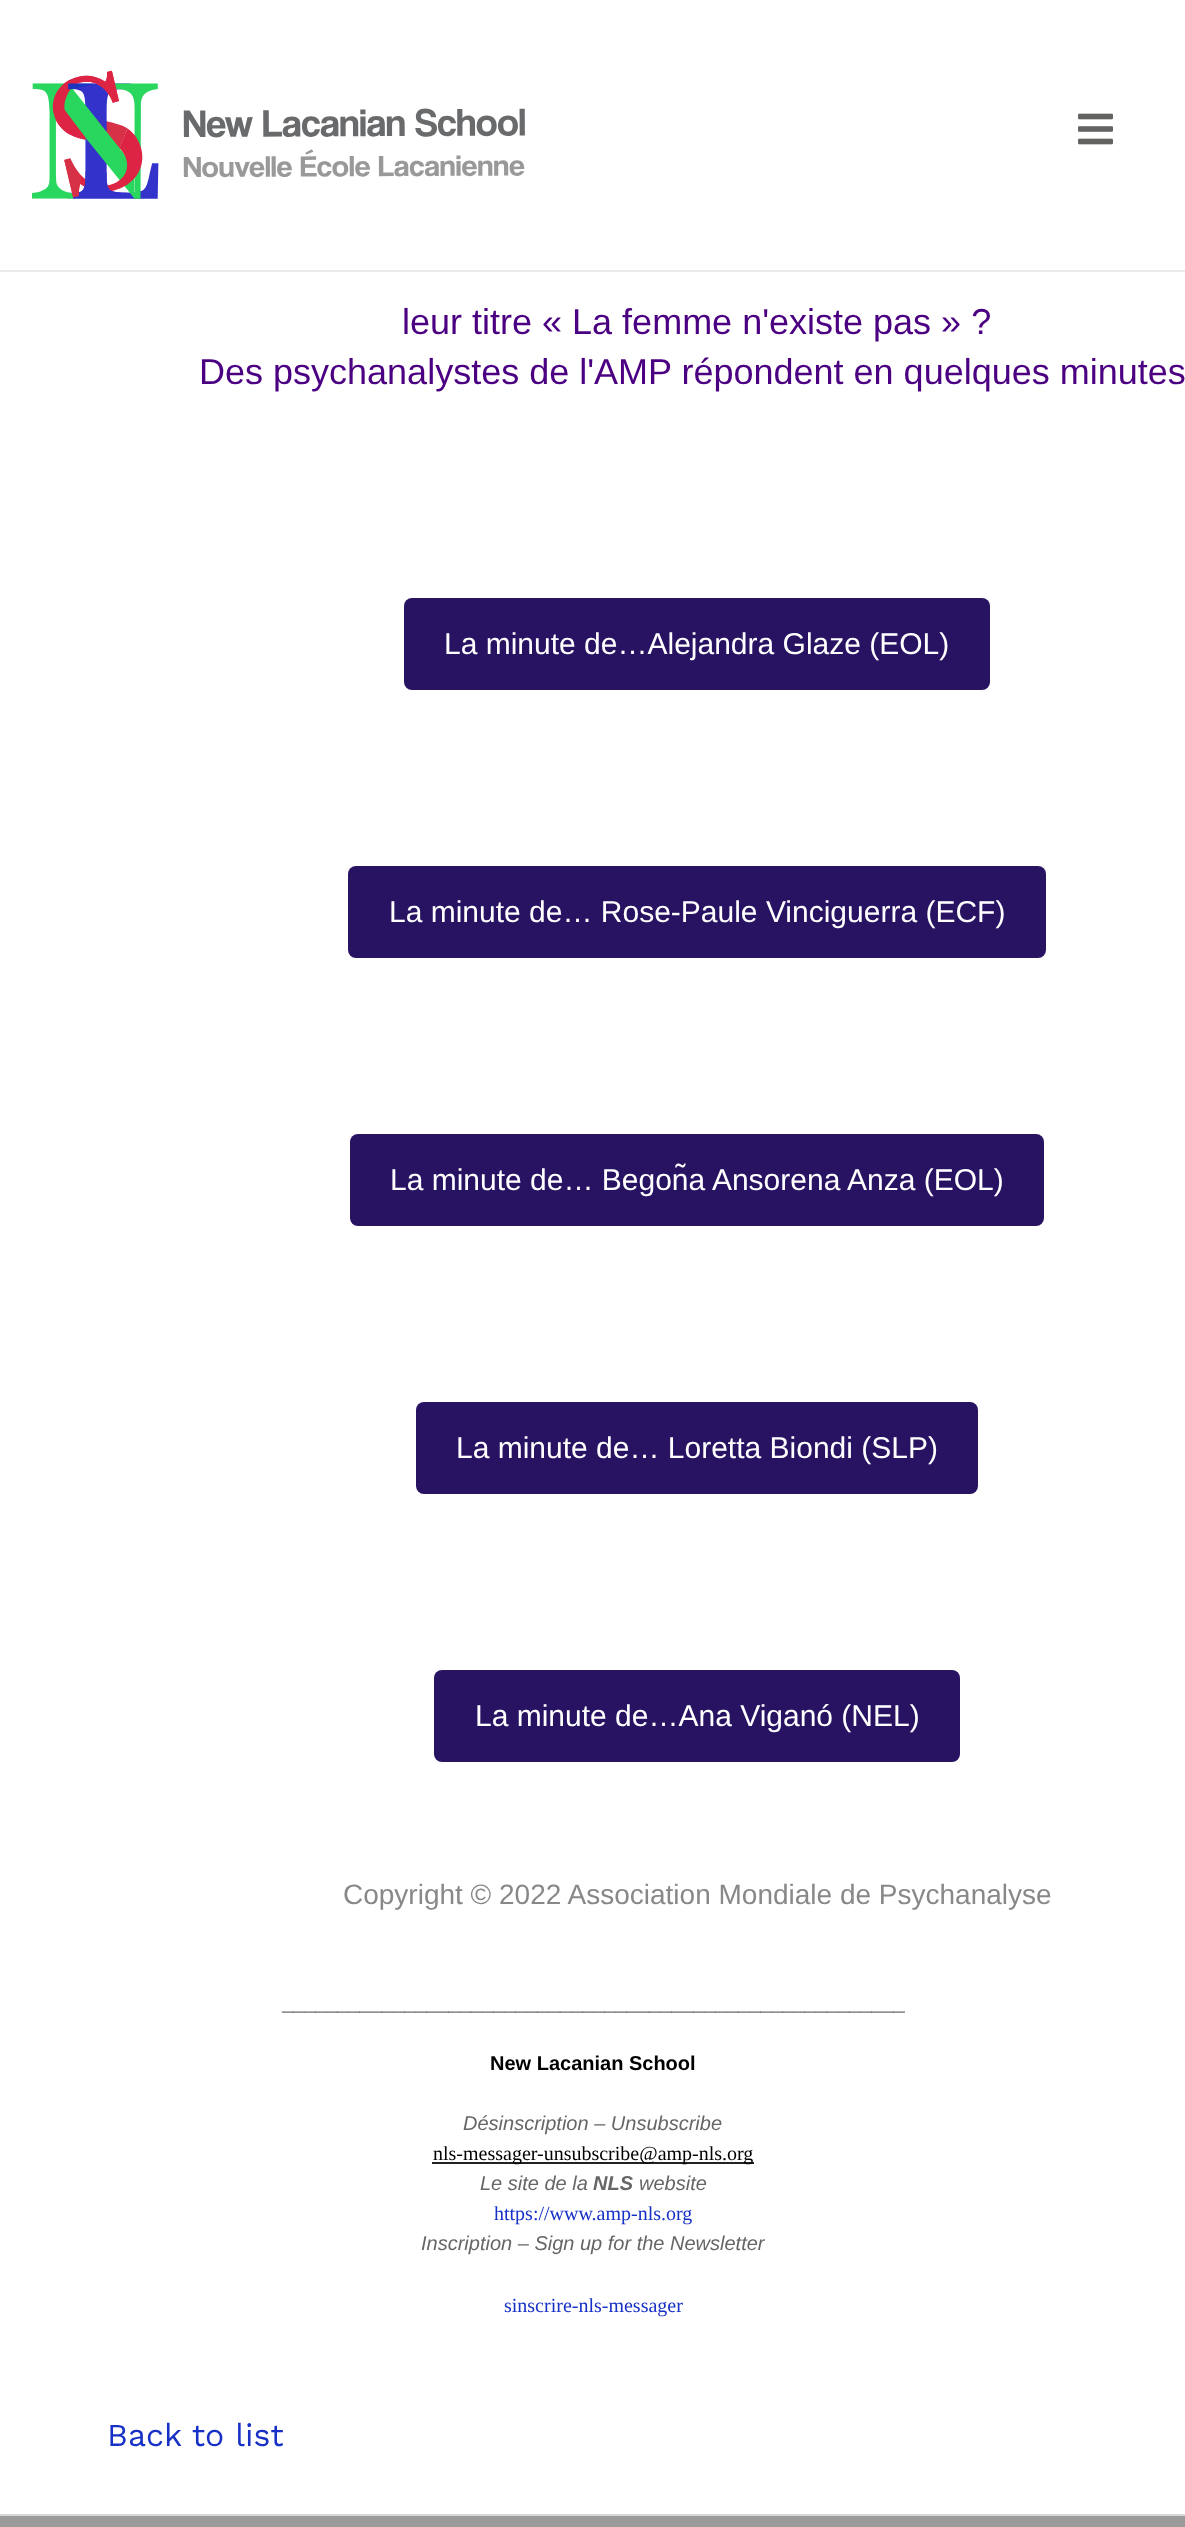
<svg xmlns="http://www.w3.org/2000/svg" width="1185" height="2527">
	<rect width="100%" height="100%" fill="#FFFFFF" />
	<rect x="0" y="270" width="1185" height="2" fill="#EBEBEB" />
	<image x="32" y="70" width="493" height="129" href="assets/img1.png" />
	<image x="1078" y="113" width="35" height="32" href="assets/img2.png" />
	<g font-family="Liberation Sans" font-size="36" fill="#4B0082">
		<text x="402" y="334">leur titre « La femme n'existe pas » ?</text>
		<text x="199" y="384">Des psychanalystes de l'AMP répondent en quelques minutes</text>
	</g>
	<rect x="404" y="598" width="586" height="92" rx="8" fill="#281363" />
	<text x="444" y="654" font-family="Liberation Sans" font-size="30" fill="#FFFFFF">La minute de…Alejandra Glaze (EOL)</text>
	<rect x="348" y="866" width="698" height="92" rx="8" fill="#281363" />
	<text x="389" y="922" font-family="Liberation Sans" font-size="30" fill="#FFFFFF">La minute de… Rose-Paule Vinciguerra (ECF)</text>
	<rect x="350" y="1134" width="694" height="92" rx="8" fill="#281363" />
	<text x="390" y="1190" font-family="Liberation Sans" font-size="30" fill="#FFFFFF">La minute de… Begoña Ansorena Anza (EOL)</text>
	<rect x="416" y="1402" width="562" height="92" rx="8" fill="#281363" />
	<text x="456" y="1458" font-family="Liberation Sans" font-size="30" fill="#FFFFFF">La minute de… Loretta Biondi (SLP)</text>
	<rect x="434" y="1670" width="526" height="92" rx="8" fill="#281363" />
	<text x="475" y="1726" font-family="Liberation Sans" font-size="30" fill="#FFFFFF">La minute de…Ana Viganó (NEL)</text>
	<text x="343" y="1904" font-family="Liberation Sans" font-size="28" fill="#888888">Copyright © 2022 Association Mondiale de Psychanalyse</text>
	<g font-family="Liberation Sans" font-size="20" font-weight="700" fill="#000000">
		<text x="282" y="2010">________________________________________________________</text>
		<text x="490" y="2070">New Lacanian School</text>
	</g>
	<text x="463" y="2130" font-family="Liberation Sans" font-size="20" font-style="italic" fill="#666666">Désinscription – Unsubscribe</text>
	<rect x="432" y="2162" width="322" height="2" fill="#222222" />
	<text x="433" y="2160" font-family="Liberation Serif" font-size="20" fill="#000000">nls-messager-unsubscribe@amp-nls.org</text>
	<text x="480" y="2190" font-family="Liberation Sans" font-size="20" font-style="italic" fill="#666666">Le site de la</text>
	<text x="593" y="2190" font-family="Liberation Sans" font-size="20" font-weight="700" font-style="italic" fill="#666666">NLS</text>
	<text x="639" y="2190" font-family="Liberation Sans" font-size="20" font-style="italic" fill="#666666">website</text>
	<text x="494" y="2220" font-family="Liberation Serif" font-size="20" fill="#1730C6">https://www.amp-nls.org</text>
	<text x="421" y="2250" font-family="Liberation Sans" font-size="20" font-style="italic" fill="#666666">Inscription – Sign up for the Newsletter</text>
	<text x="504" y="2312" font-family="Liberation Serif" font-size="20" fill="#1730C6">sinscrire-nls-messager</text>
	<text x="107" y="2446" font-family="Work Sans" font-size="32" fill="#1730C6">Back to list</text>
	<rect x="0" y="2516" width="1185" height="11" fill="#9B9B9B" />
	<rect x="0" y="2514" width="1185" height="2" fill="#D8D8D8" />
</svg>
